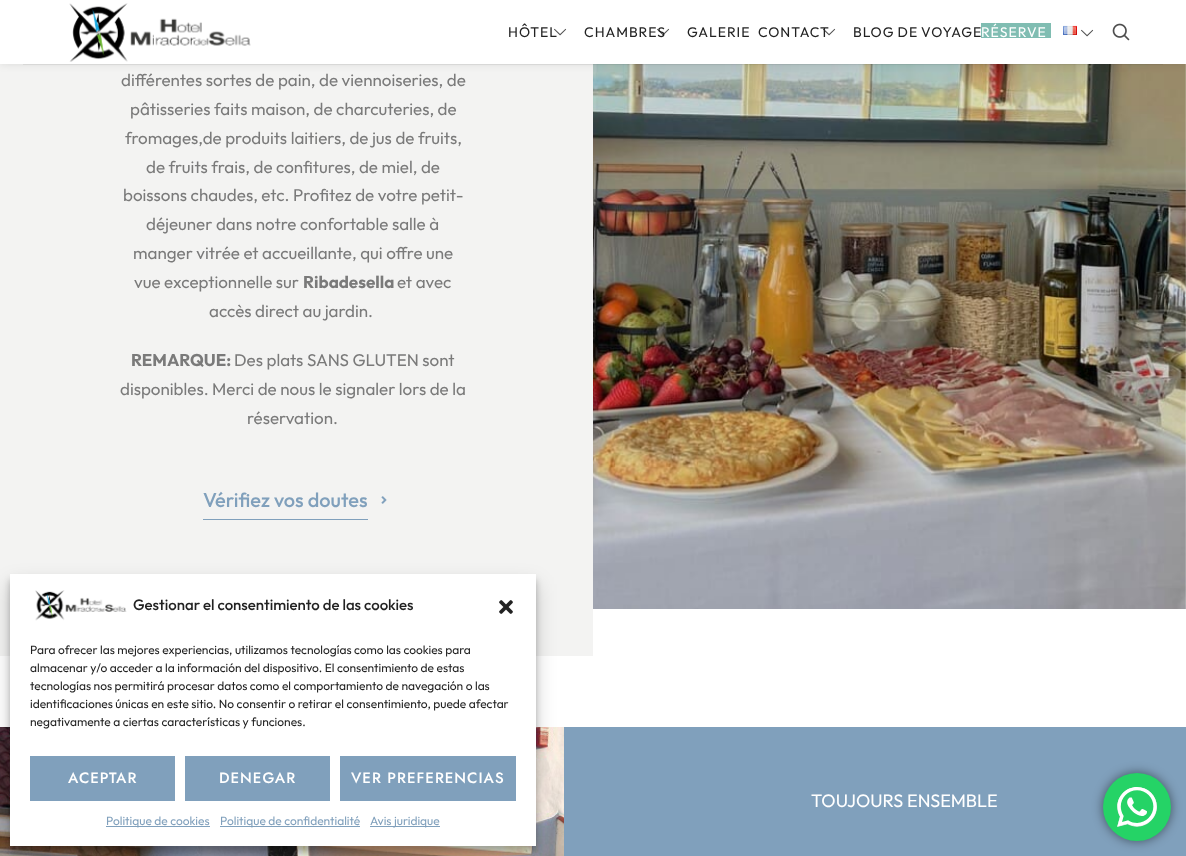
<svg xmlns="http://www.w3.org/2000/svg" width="1186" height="856">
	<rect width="100%" height="100%" fill="#FFFFFF" />
	<rect x="0" y="64" width="593" height="592" fill="#F3F3F2" />
	<image x="593" y="64" width="593" height="545" href="assets/img9.png" />
	<rect x="23" y="64" width="1140" height="1" fill="#222222" fill-opacity="0.08" />
	<rect x="0" y="0" width="1186" height="64" fill="#000000" fill-opacity="0.1" filter="blur(4px)" />
	<rect x="0" y="0" width="1186" height="64" fill="#FFFFFF" />
	<image x="69" y="3" width="182" height="59" href="assets/img1.png" />
	<text x="508" y="37" font-family="Outfit" font-size="14" letter-spacing="1" fill="#222222">HÔTEL</text>
	<image x="554" y="28" width="13" height="8" href="assets/img2.png" />
	<text x="584" y="37" font-family="Outfit" font-size="14" letter-spacing="1" fill="#222222">CHAMBRES</text>
	<image x="657" y="28" width="13" height="8" href="assets/img3.png" />
	<g font-family="Outfit" font-size="14" letter-spacing="1" fill="#222222">
		<text x="687" y="37">GALERIE</text>
		<text x="758" y="37">CONTACT</text>
	</g>
	<image x="823" y="28" width="13" height="8" href="assets/img4.png" />
	<text x="853" y="37" word-spacing="-1" font-family="Outfit" font-size="14" letter-spacing="1" fill="#222222">BLOG DE VOYAGE</text>
	<rect x="981" y="23" width="70" height="15" fill="#80BDB2" />
	<text x="981" y="37" font-family="Outfit" font-size="14" letter-spacing="1" fill="#FFFFFF">RÉSERVE</text>
	<image x="1063" y="25" width="14" height="10" href="assets/img5.png" />
	<image x="1081" y="29" width="13" height="8" href="assets/img6.png" />
	<image x="1112" y="23" width="18" height="18" href="assets/img7.png" />
	<g font-family="Outfit" font-size="17" fill="#7A7A7A">
		<text x="121" y="86">différentes sortes de pain, de viennoiseries, de</text>
		<text x="130" y="115">pâtisseries faits maison, de charcuteries, de</text>
		<text x="125" y="144">fromages,de produits laitiers, de jus de fruits,</text>
		<text x="146" y="173">de fruits frais, de confitures, de miel, de</text>
		<text x="123" y="201">boissons chaudes, etc. Profitez de votre petit-</text>
		<text x="146" y="230">déjeuner dans notre confortable salle à</text>
		<text x="133" y="259">manger vitrée et accueillante, qui offre une</text>
		<text x="134" y="288">vue exceptionnelle sur</text>
	</g>
	<text x="303" y="288" font-family="Outfit" font-size="17" font-weight="700" fill="#7A7A7A">Ribadesella</text>
	<g font-family="Outfit" font-size="17" fill="#7A7A7A">
		<text x="397" y="288">et avec</text>
		<text x="209" y="317">accès direct au jardin.</text>
	</g>
	<text x="131" y="366" font-family="Outfit" font-size="17" font-weight="700" fill="#7A7A7A">REMARQUE:</text>
	<g font-family="Outfit" font-size="17" fill="#7A7A7A">
		<text x="234" y="366">Des plats SANS GLUTEN sont</text>
		<text x="120" y="395">disponibles. Merci de nous le signaler lors de la</text>
		<text x="247" y="424">réservation.</text>
	</g>
	<text x="203" y="507" font-family="Outfit" font-size="20" font-weight="500" fill="#80A0BC">Vérifiez vos doutes</text>
	<rect x="203" y="519" width="165" height="1" fill="#80A0BC" />
	<image x="381" y="496" width="6" height="8" href="assets/img8.png" />
	<rect x="564" y="727" width="622" height="129" fill="#80A0BC" />
	<image x="0" y="727" width="564" height="129" href="assets/img10.png" />
	<text x="811" y="807" font-family="Outfit" font-size="18" fill="#FFFFFF">TOUJOURS ENSEMBLE</text>
	<rect x="10" y="580" width="526" height="272" fill="#000000" fill-opacity="0.23" filter="blur(3px)" />
	<rect x="10" y="584" width="526" height="272" fill="#000000" fill-opacity="0.19" filter="blur(10px)" />
	<rect x="10" y="574" width="526" height="272" fill="#FFFFFF" />
	<image x="35" y="590" width="92" height="31" href="assets/img11.png" />
	<text x="133" y="610" font-family="Outfit" font-size="15" font-weight="500" fill="#222222">Gestionar el consentimiento de las cookies</text>
	<image x="499" y="600" width="14" height="14" href="assets/img12.png" />
	<g font-family="Outfit" font-size="12" fill="#222222">
		<text x="30" y="654">Para ofrecer las mejores experiencias, utilizamos tecnologías como las cookies para</text>
		<text x="30" y="672">almacenar y/o acceder a la información del dispositivo. El consentimiento de estas</text>
		<text x="30" y="690">tecnologías nos permitirá procesar datos como el comportamiento de navegación o las</text>
		<text x="30" y="708">identificaciones únicas en este sitio. No consentir o retirar el consentimiento, puede afectar</text>
		<text x="30" y="726">negativamente a ciertas características y funciones.</text>
	</g>
	<rect x="30" y="756" width="145" height="45" fill="#80A0BC" />
	<text x="68" y="783" font-family="Jost" font-size="15" font-weight="500" letter-spacing="1" fill="#FFFFFF">ACEPTAR</text>
	<rect x="185" y="756" width="145" height="45" fill="#80A0BC" />
	<text x="219" y="783" font-family="Jost" font-size="15" font-weight="500" letter-spacing="1" fill="#FFFFFF">DENEGAR</text>
	<rect x="340" y="756" width="176" height="45" fill="#80A0BC" />
	<text x="351" y="783" font-family="Jost" font-size="15" font-weight="500" letter-spacing="1" fill="#FFFFFF">VER PREFERENCIAS</text>
	<rect x="106" y="826" width="104" height="1" fill="#80A0BC" />
	<text x="106" y="825" font-family="Outfit" font-size="12" fill="#80A0BC">Politique de cookies</text>
	<rect x="220" y="826" width="140" height="1" fill="#80A0BC" />
	<text x="220" y="825" font-family="Outfit" font-size="12" fill="#80A0BC">Politique de confidentialité</text>
	<rect x="370" y="826" width="70" height="1" fill="#80A0BC" />
	<text x="370" y="825" font-family="Outfit" font-size="12" fill="#80A0BC">Avis juridique</text>
	<rect x="1103" y="773" width="68" height="68" rx="34" fill="#000000" fill-opacity="0.5" filter="blur(5.5px)" />
	<circle cx="1137" cy="807" r="34" fill="#25D366" />
	<image x="1117" y="787" width="40" height="40" href="assets/img13.png" />
</svg>
